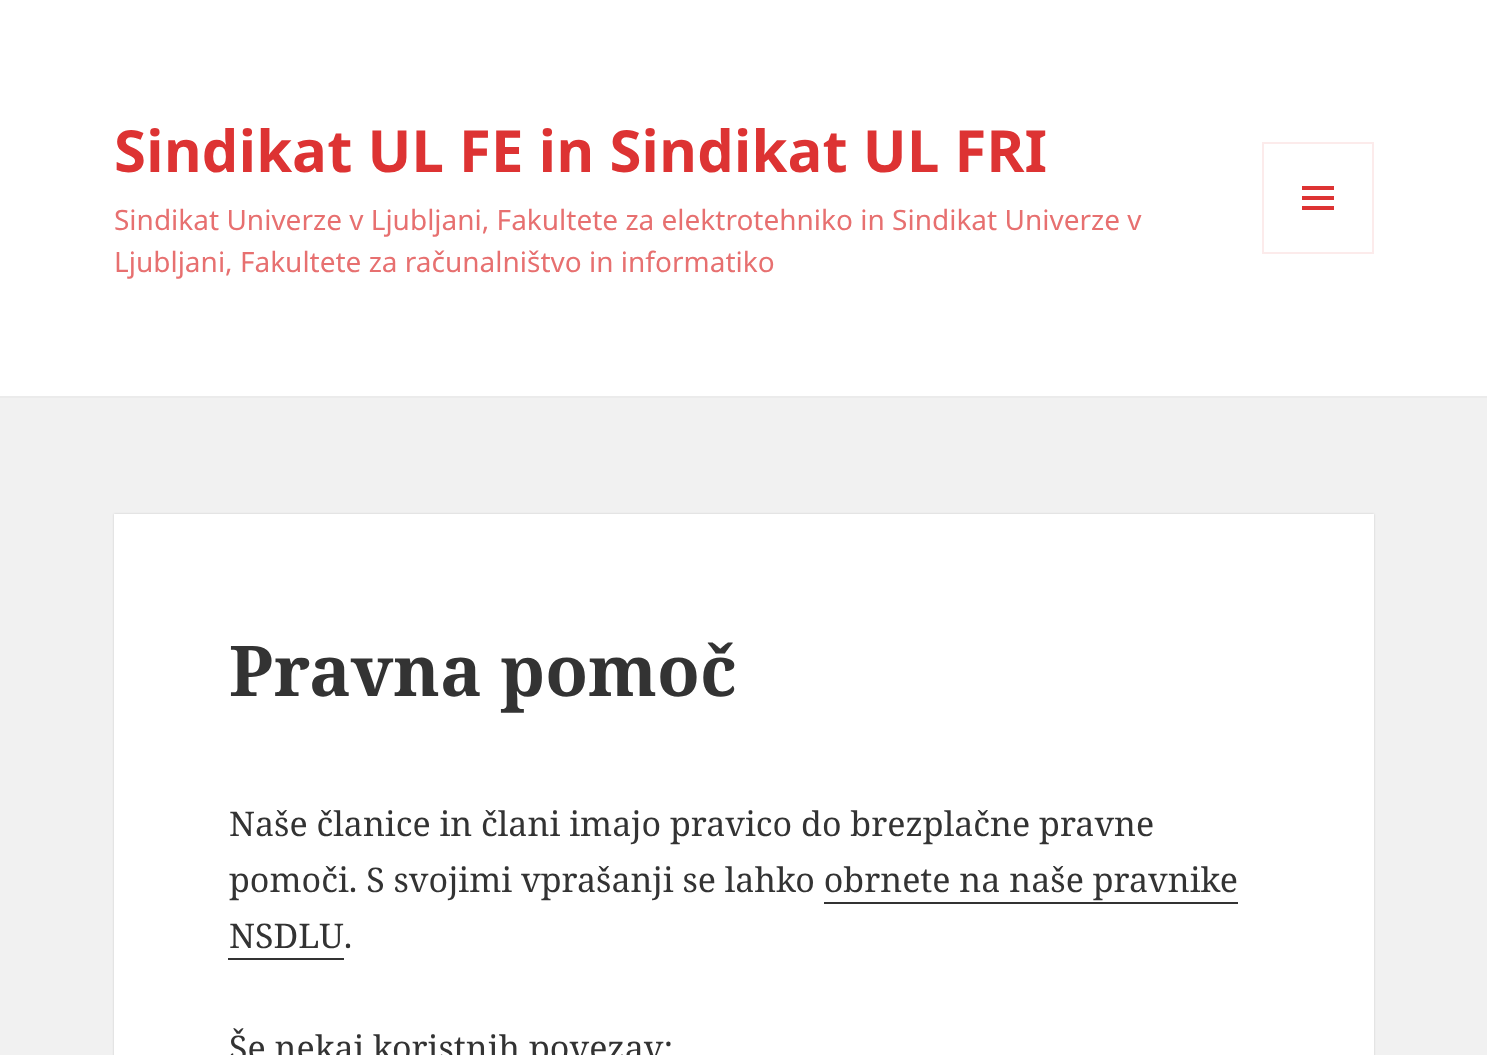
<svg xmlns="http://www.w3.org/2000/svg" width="1487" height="1055">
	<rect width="100%" height="100%" fill="#F1F1F1" />
	<rect x="0" y="0" width="1487" height="396" fill="#FFFFFF" />
	<rect x="0" y="396" width="1487" height="2" fill="#EBEBEB" />
	<text x="114" y="172" font-family="Noto Sans" font-size="58" font-weight="700" fill="#DD3333">Sindikat UL FE in Sindikat UL FRI</text>
	<rect x="1263" y="143" width="110" height="110" fill="none" stroke="#FCEBEB" stroke-width="2" />
	<image x="1302" y="186" width="32" height="24" href="assets/img1.png" />
	<g font-family="Noto Sans" font-size="28" fill="#E77070">
		<text x="114" y="230">Sindikat Univerze v Ljubljani, Fakultete za elektrotehniko in Sindikat Univerze v</text>
		<text x="114" y="272">Ljubljani, Fakultete za računalništvo in informatiko</text>
	</g>
	<rect x="114" y="514" width="1260" height="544" fill="#000000" fill-opacity="0.15" filter="blur(1px)" />
	<rect x="114" y="514" width="1260" height="541" fill="#FFFFFF" />
	<text x="229" y="696" font-family="Noto Serif" font-size="70" font-weight="700" fill="#333333">Pravna pomoč</text>
	<g font-family="Noto Serif" font-size="34" fill="#333333">
		<text x="229" y="836">Naše članice in člani imajo pravico do brezplačne pravne</text>
		<text x="229" y="892">pomoči. S svojimi vprašanji se lahko obrnete na naše pravnike</text>
		<text x="229" y="948">NSDLU.</text>
	</g>
	<rect x="824" y="902" width="414" height="2" fill="#333333" />
	<rect x="228" y="958" width="116" height="2" fill="#333333" />
	<text x="229" y="1060" font-family="Noto Serif" font-size="34" fill="#333333">Še nekaj koristnih povezav:</text>
</svg>
